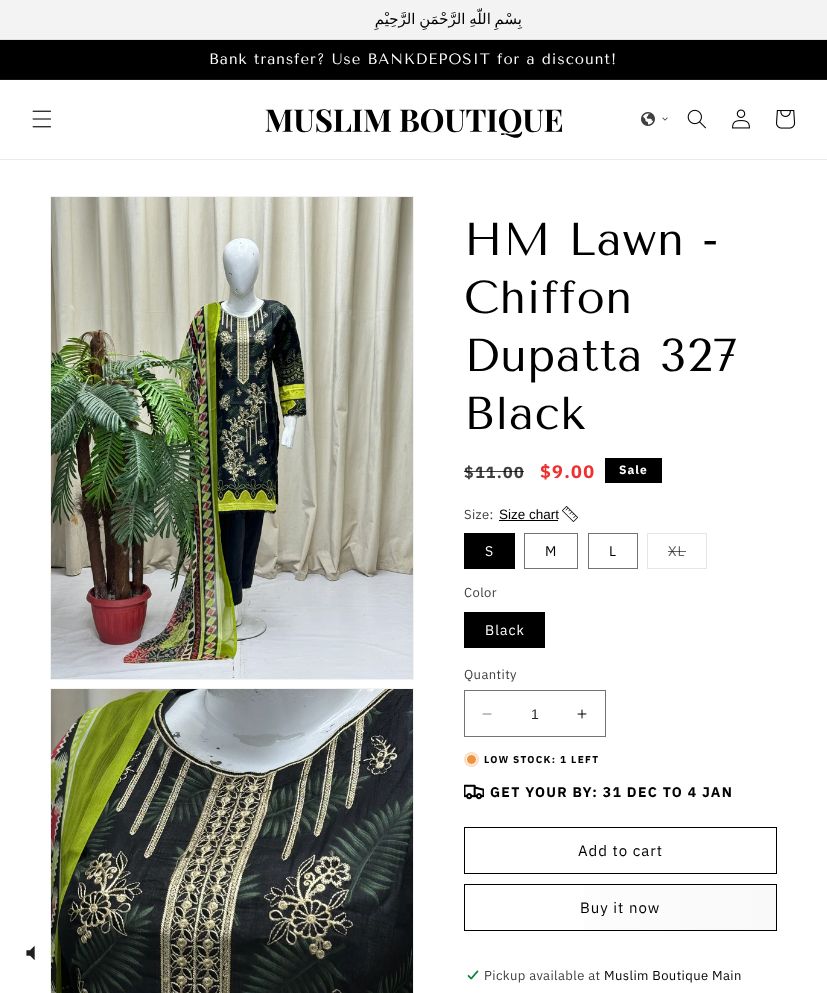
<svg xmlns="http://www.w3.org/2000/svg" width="827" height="993">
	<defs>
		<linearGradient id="g1" gradientUnits="userSpaceOnUse" x1="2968" y1="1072" x2="464" y2="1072"><stop offset="0" stop-color="#000000" /><stop offset="0.25" stop-color="#4D4D4D" /><stop offset="0.5" stop-color="#A6A6A6" /><stop offset="0.75" stop-color="#F2F2F2" /><stop offset="1" stop-color="#FFFFFF" /></linearGradient>
	</defs>
	<rect width="100%" height="100%" fill="#FFFFFF" />
	<rect x="0" y="0" width="827" height="39" fill="#F3F3F3" />
	<rect x="0" y="39" width="827" height="1" fill="#E0E0E0" />
	<text x="522" y="24" word-spacing="-1" font-family="DejaVu Sans" font-size="14.95" letter-spacing="1" direction="rtl" fill="#000000">بِسْمِ اللّهِ الرَّحْمَنِ الرَّحِيْمِ</text>
	<rect x="0" y="40" width="827" height="39" fill="#000000" />
	<rect x="0" y="79" width="827" height="1" fill="#141414" />
	<text x="209" y="64" font-family="Tenor Sans" font-size="14.95" letter-spacing="1" fill="#FFFFFF">Bank transfer? Use BANKDEPOSIT for a discount!</text>
	<rect x="0" y="159" width="827" height="1" fill="#EBEBEB" />
	<image x="32" y="110" width="20" height="18" href="assets/img1.png" />
	<image x="265" y="109" width="298" height="29" href="assets/img2.png" />
	<image x="641" y="112" width="14" height="14" href="assets/img3.png" />
	<image x="662" y="117" width="6" height="4" href="assets/img4.png" />
	<image x="687" y="109" width="19" height="20" href="assets/img5.png" />
	<image x="732" y="109" width="18" height="20" href="assets/img6.png" />
	<image x="776" y="110" width="20" height="19" href="assets/img7.png" />
	<image x="26" y="945" width="9" height="16" href="assets/img8.png" />
	<rect x="50.5" y="196.5" width="363" height="483" fill="none" stroke="#F2F2F2" />
	<image x="51" y="197" width="362" height="482" href="assets/img9.png" />
	<rect x="50.5" y="688.5" width="363" height="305" fill="none" stroke="#F2F2F2" />
	<image x="51" y="689" width="362" height="304" href="assets/img10.png" />
	<g font-family="Tenor Sans" font-size="46" letter-spacing="0.75" fill="#000000">
		<text x="464" y="255">HM Lawn -</text>
		<text x="464" y="313">Chiffon</text>
		<text x="464" y="371">Dupatta 327</text>
		<text x="464" y="429">Black</text>
	</g>
	<text x="464" y="478" font-family="IBM Plex Sans" font-size="16" font-weight="700" letter-spacing="1.3" fill="#404040">$11.00</text>
	<rect x="464" y="471" width="60" height="1" fill="#000000" fill-opacity="0.75" />
	<text x="540" y="478" font-family="IBM Plex Sans" font-size="18" font-weight="700" letter-spacing="1.3" fill="#EE3030">$9.00</text>
	<rect x="605" y="458" width="57" height="25" fill="#000000" />
	<text x="619" y="474" font-family="IBM Plex Sans" font-size="12" font-weight="700" letter-spacing="1" fill="#FFFFFF">Sale</text>
	<text x="464" y="519" font-family="IBM Plex Sans" font-size="13" letter-spacing="0.4" fill="#404040">Size:</text>
	<text x="499" y="519" font-family="Liberation Sans" font-size="13.5" fill="#000000">Size chart</text>
	<rect x="499" y="520" width="59" height="1" fill="#000000" />
	<image x="562" y="506" width="16" height="16" href="assets/img11.png" />
	<rect x="464" y="533" width="51" height="36" fill="#000000" />
	<text x="485" y="556" font-family="IBM Plex Sans" font-size="14" letter-spacing="1" fill="#FFFFFF">S</text>
	<rect x="524.5" y="533.5" width="53" height="35" fill="none" stroke="#737373" />
	<text x="545" y="556" font-family="IBM Plex Sans" font-size="14" letter-spacing="1" fill="#000000">M</text>
	<rect x="588.5" y="533.5" width="49" height="35" fill="none" stroke="#737373" />
	<text x="609" y="556" font-family="IBM Plex Sans" font-size="14" letter-spacing="1" fill="#000000">L</text>
	<rect x="647.5" y="533.5" width="59" height="35" fill="none" stroke="#E6E6E6" />
	<text x="668" y="556" font-family="IBM Plex Sans" font-size="14" letter-spacing="1" fill="#666666">XL</text>
	<rect x="668" y="551" width="18" height="1" fill="#000000" fill-opacity="0.6" />
	<text x="464" y="597" font-family="IBM Plex Sans" font-size="13" letter-spacing="0.4" fill="#404040">Color</text>
	<rect x="464" y="612" width="81" height="36" fill="#000000" />
	<text x="485" y="635" font-family="IBM Plex Sans" font-size="14" letter-spacing="1" fill="#FFFFFF">Black</text>
	<text x="464" y="679" font-family="IBM Plex Sans" font-size="13" letter-spacing="0.4" fill="#404040">Quantity</text>
	<image x="482" y="713" width="10" height="2" href="assets/img12.png" />
	<image x="577" y="709" width="10" height="10" href="assets/img13.png" />
	<rect x="464.5" y="690.5" width="141" height="46" fill="none" stroke="#737373" />
	<text x="531" y="719" font-family="Liberation Sans" font-size="14" fill="#262626">1</text>
	<circle cx="471.5" cy="759.5" r="7.5" fill="#FADFC6" />
	<circle cx="471.5" cy="759.5" r="5" fill="#EE9441" stroke="#FFFFFF" />
	<text x="484" y="763" font-family="IBM Plex Sans" font-size="10" font-weight="700" letter-spacing="1.3" fill="#000000">LOW STOCK: 1 LEFT</text>
	<image x="464" y="784" width="20" height="16" href="assets/img14.png" />
	<text x="490" y="797" font-family="IBM Plex Sans" font-size="14" font-weight="700" letter-spacing="1.3" fill="#000000">GET YOUR BY: 31 DEC TO 4 JAN</text>
	<rect x="464.5" y="827.5" width="312" height="46" fill="none" stroke="#000000" />
	<text x="578" y="856" font-family="IBM Plex Sans" font-size="15" letter-spacing="1" fill="#000000">Add to cart</text>
	<rect x="584" y="885" width="192" height="45" fill="url(#g1)" />
	<rect x="464.5" y="884.5" width="312" height="46" fill="none" stroke="#000000" />
	<text x="580" y="913" font-family="IBM Plex Sans" font-size="15" letter-spacing="1" fill="#000000">Buy it now</text>
	<image x="467" y="970" width="12" height="10" href="assets/img15.png" />
	<text x="484" y="980" font-family="IBM Plex Sans" font-size="13" letter-spacing="0.4" fill="#404040">Pickup available at</text>
	<text x="604" y="980" font-family="IBM Plex Sans" font-size="13" letter-spacing="0.4" fill="#000000">Muslim Boutique Main</text>
</svg>
